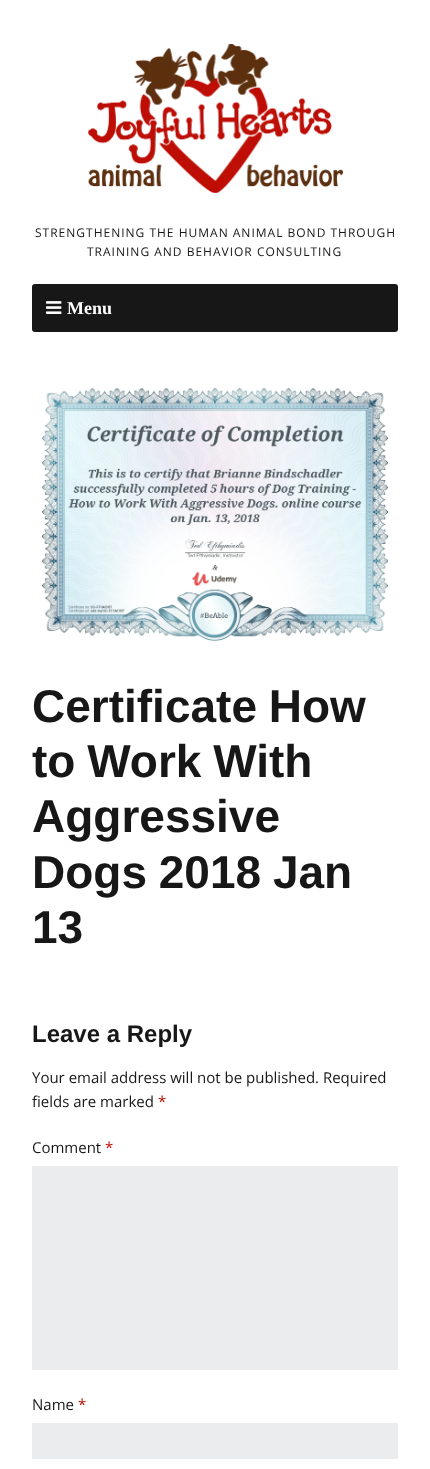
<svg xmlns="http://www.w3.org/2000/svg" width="430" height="1469">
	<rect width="100%" height="100%" fill="#FFFFFF" />
	<image x="88" y="44" width="255" height="149" href="assets/img1.png" />
	<g font-family="Open Sans" font-size="12" letter-spacing="1" fill="#171717">
		<text x="35" y="237">STRENGTHENING THE HUMAN ANIMAL BOND THROUGH</text>
		<text x="87" y="256">TRAINING AND BEHAVIOR CONSULTING</text>
	</g>
	<rect x="32" y="284" width="366" height="48" rx="3" fill="#171717" />
	<image x="46" y="301" width="16" height="13" href="assets/img2.png" />
	<text x="67" y="314" font-family="Liberation Serif" font-size="18" font-weight="700" fill="#FFFFFF">Menu</text>
	<image x="41" y="387" width="348" height="254" href="assets/img3.png" />
	<g font-family="Liberation Sans" font-size="46" font-weight="700" fill="#171717">
		<text x="32" y="722" word-spacing="-1">Certificate How</text>
		<text x="32" y="777" word-spacing="-1">to Work With</text>
		<text x="32" y="832">Aggressive</text>
		<text x="32" y="888" word-spacing="-1">Dogs 2018 Jan</text>
		<text x="32" y="943">13</text>
	</g>
	<text x="32" y="1042" font-family="Liberation Sans" font-size="24" font-weight="700" fill="#171717">Leave a Reply</text>
	<g font-family="Open Sans" font-size="15" fill="#171717">
		<text x="32" y="1083">Your email address will not be published. Required</text>
		<text x="32" y="1107">fields are marked</text>
	</g>
	<text x="158" y="1107" font-family="Open Sans" font-size="15" fill="#BD0E02">*</text>
	<text x="32" y="1153" font-family="Open Sans" font-size="15" fill="#171717">Comment</text>
	<text x="105" y="1153" font-family="Open Sans" font-size="15" fill="#BD0E02">*</text>
	<rect x="32" y="1166" width="366" height="204" fill="#EAECEE" />
	<text x="32" y="1410" font-family="Open Sans" font-size="15" fill="#171717">Name</text>
	<text x="78" y="1410" font-family="Open Sans" font-size="15" fill="#BD0E02">*</text>
	<rect x="32" y="1423" width="366" height="36" fill="#EAECEE" />
</svg>
